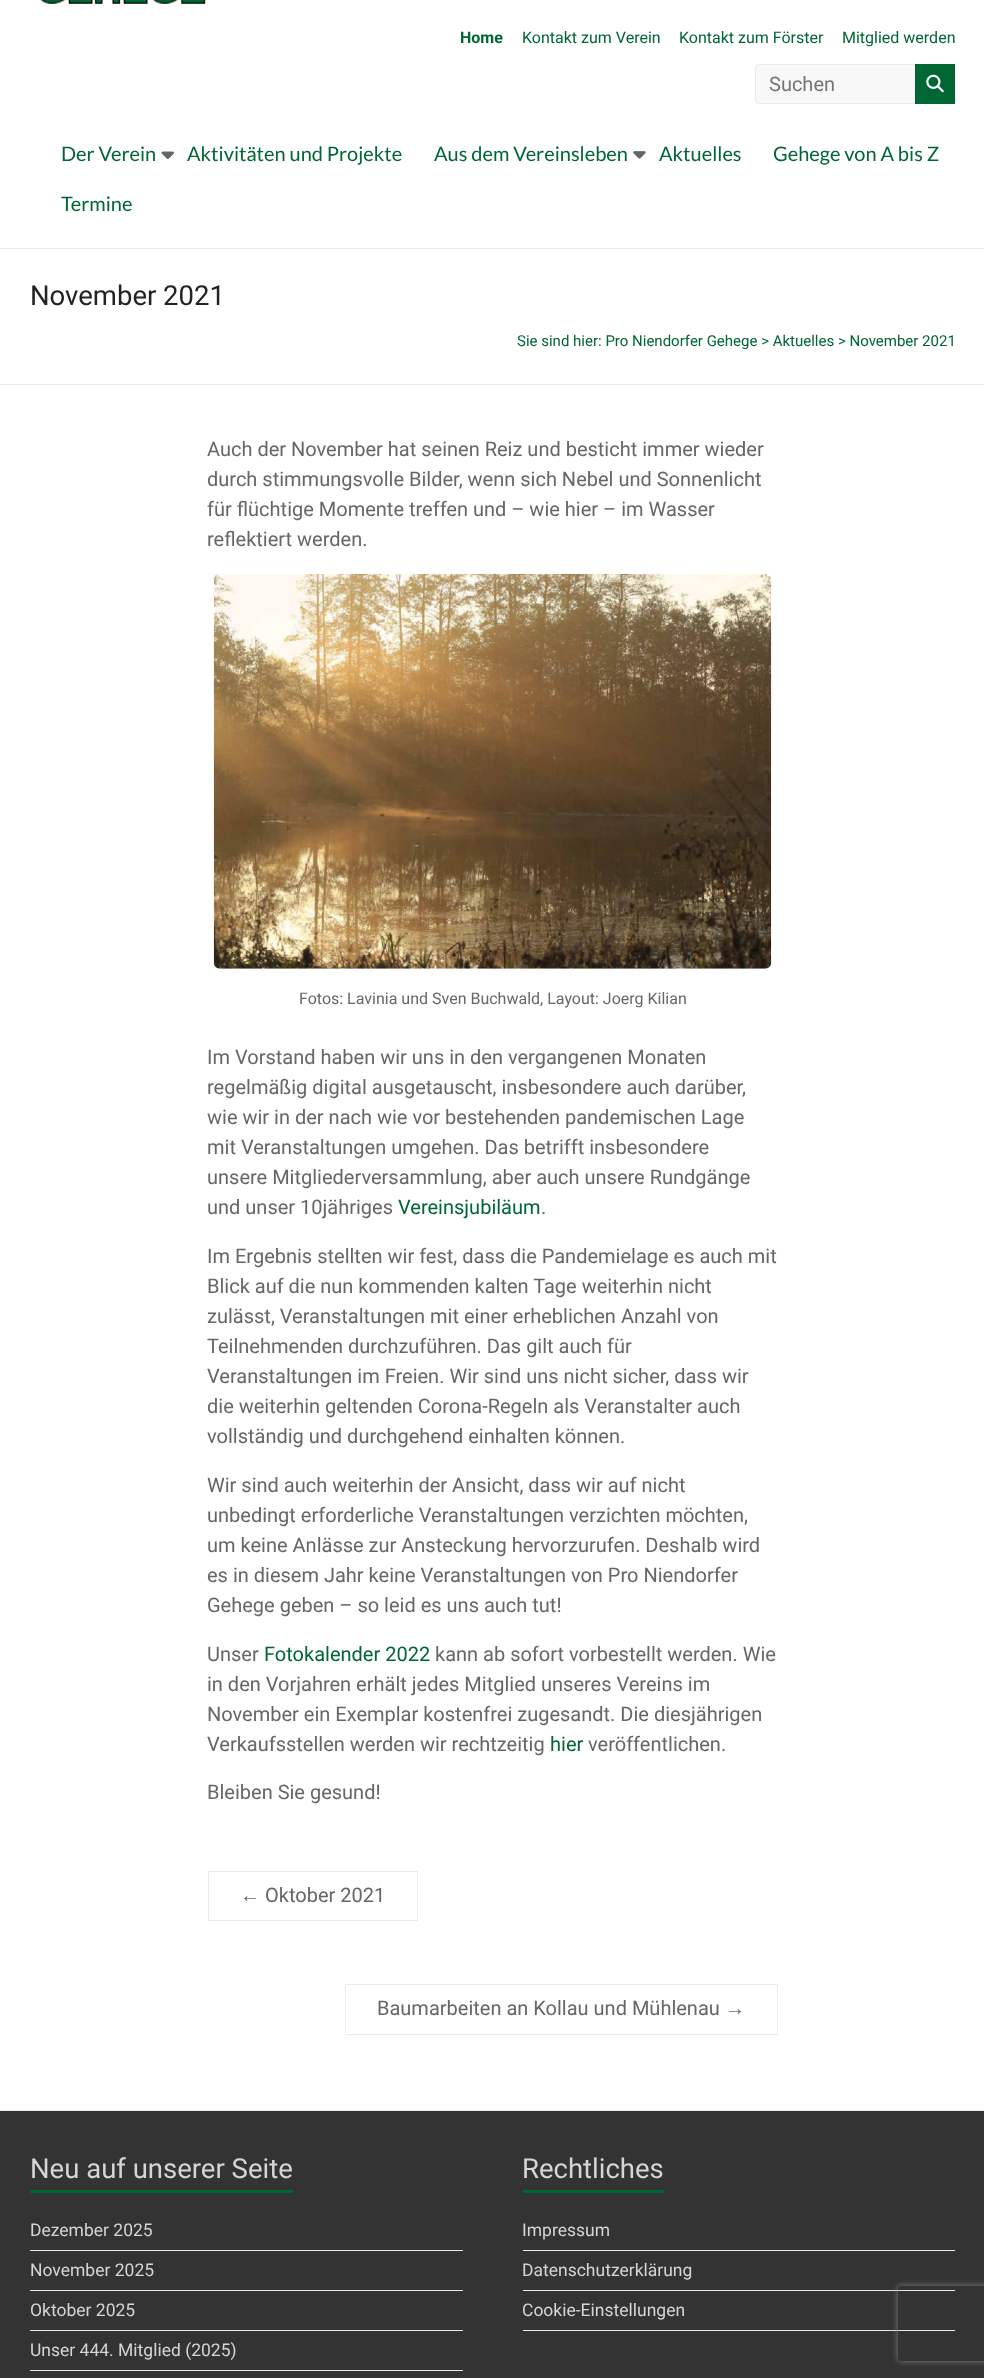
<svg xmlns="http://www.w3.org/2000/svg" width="984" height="2378">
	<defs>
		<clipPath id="clip1"><path d="M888 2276H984V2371H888ZM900.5 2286H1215.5C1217 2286 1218 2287 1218 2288.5V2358.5C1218 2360 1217 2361 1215.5 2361H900.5C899 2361 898 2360 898 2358.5V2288.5C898 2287 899 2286 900.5 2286Z" clip-rule="evenodd" /></clipPath>
	</defs>
	<rect width="100%" height="100%" fill="#FFFFFF" />
	<rect x="0" y="248" width="984" height="1" fill="#EAEAEA" />
	<image x="40" y="0" width="166" height="4" href="assets/img1.png" />
	<text x="460" y="43" font-family="Roboto" font-size="16" font-weight="700" fill="#006633">Home</text>
	<g font-family="Roboto" font-size="16" fill="#006633">
		<text x="522" y="43">Kontakt zum Verein</text>
		<text x="679" y="43">Kontakt zum Förster</text>
		<text x="842" y="43">Mitglied werden</text>
	</g>
	<rect x="755.5" y="64.5" width="162" height="39" rx="3.5" fill="#F8F8F8" stroke="#EAEAEA" />
	<text x="769" y="91" font-family="Roboto" font-size="20" fill="#757575">Suchen</text>
	<rect x="915" y="64" width="40" height="40" fill="#006633" />
	<image x="926" y="74" width="18" height="19" href="assets/img2.png" />
	<text x="61" y="161" font-family="Lato" font-size="20" fill="#006633">Der Verein</text>
	<image x="161" y="151" width="13" height="8" href="assets/img3.png" />
	<g font-family="Lato" font-size="20" fill="#006633">
		<text x="187" y="161">Aktivitäten und Projekte</text>
		<text x="434" y="161">Aus dem Vereinsleben</text>
	</g>
	<image x="633" y="151" width="13" height="8" href="assets/img4.png" />
	<g font-family="Lato" font-size="20" fill="#006633">
		<text x="659" y="161">Aktuelles</text>
		<text x="773" y="161">Gehege von A bis Z</text>
		<text x="61" y="211">Termine</text>
	</g>
	<rect x="0" y="384" width="984" height="1" fill="#EAEAEA" />
	<text x="30" y="305" font-family="Roboto" font-size="27.5" fill="#222222">November 2021</text>
	<text x="517" y="346" font-family="Roboto" font-size="15" fill="#006633">Sie sind hier: Pro Niendorfer Gehege &gt; Aktuelles &gt; November 2021</text>
	<g font-family="Roboto" font-size="20" fill="#666666">
		<text x="207" y="456">Auch der November hat seinen Reiz und besticht immer wieder</text>
		<text x="207" y="486">durch stimmungsvolle Bilder, wenn sich Nebel und Sonnenlicht</text>
		<text x="207" y="516">für flüchtige Momente treffen und – wie hier – im Wasser</text>
		<text x="207" y="546">reflektiert werden.</text>
	</g>
	<image x="213" y="573" width="559" height="396" href="assets/img5.png" />
	<text x="299" y="1004" font-family="Roboto" font-size="16" fill="#666666">Fotos: Lavinia und Sven Buchwald, Layout: Joerg Kilian</text>
	<g font-family="Roboto" font-size="20" fill="#666666">
		<text x="207" y="1064">Im Vorstand haben wir uns in den vergangenen Monaten</text>
		<text x="207" y="1094">regelmäßig digital ausgetauscht, insbesondere auch darüber,</text>
		<text x="207" y="1124">wie wir in der nach wie vor bestehenden pandemischen Lage</text>
		<text x="207" y="1154">mit Veranstaltungen umgehen. Das betrifft insbesondere</text>
		<text x="207" y="1184">unsere Mitgliederversammlung, aber auch unsere Rundgänge</text>
		<text x="207" y="1214">und unser 10jähriges</text>
	</g>
	<text x="398" y="1214" font-family="Roboto" font-size="20" fill="#006633">Vereinsjubiläum</text>
	<g font-family="Roboto" font-size="20" fill="#666666">
		<text x="541" y="1214">.</text>
		<text x="207" y="1263">Im Ergebnis stellten wir fest, dass die Pandemielage es auch mit</text>
		<text x="207" y="1293">Blick auf die nun kommenden kalten Tage weiterhin nicht</text>
		<text x="207" y="1323">zulässt, Veranstaltungen mit einer erheblichen Anzahl von</text>
		<text x="207" y="1353">Teilnehmenden durchzuführen. Das gilt auch für</text>
		<text x="207" y="1383">Veranstaltungen im Freien. Wir sind uns nicht sicher, dass wir</text>
		<text x="207" y="1413">die weiterhin geltenden Corona-Regeln als Veranstalter auch</text>
		<text x="207" y="1443">vollständig und durchgehend einhalten können.</text>
		<text x="207" y="1492">Wir sind auch weiterhin der Ansicht, dass wir auf nicht</text>
		<text x="207" y="1522">unbedingt erforderliche Veranstaltungen verzichten möchten,</text>
		<text x="207" y="1552">um keine Anlässe zur Ansteckung hervorzurufen. Deshalb wird</text>
		<text x="207" y="1582">es in diesem Jahr keine Veranstaltungen von Pro Niendorfer</text>
		<text x="207" y="1612">Gehege geben – so leid es uns auch tut!</text>
		<text x="207" y="1661">Unser</text>
	</g>
	<text x="264" y="1661" font-family="Roboto" font-size="20" fill="#006633">Fotokalender 2022</text>
	<g font-family="Roboto" font-size="20" fill="#666666">
		<text x="435" y="1661">kann ab sofort vorbestellt werden. Wie</text>
		<text x="207" y="1691">in den Vorjahren erhält jedes Mitglied unseres Vereins im</text>
		<text x="207" y="1721">November ein Exemplar kostenfrei zugesandt. Die diesjährigen</text>
		<text x="207" y="1751">Verkaufsstellen werden wir rechtzeitig</text>
	</g>
	<text x="550" y="1751" font-family="Roboto" font-size="20" fill="#006633">hier</text>
	<g font-family="Roboto" font-size="20" fill="#666666">
		<text x="588" y="1751">veröffentlichen.</text>
		<text x="207" y="1799">Bleiben Sie gesund!</text>
	</g>
	<rect x="208.5" y="1871.5" width="209" height="49" fill="none" stroke="#EAEAEA" />
	<text x="240" y="1902" font-family="Liberation Sans" font-size="20" fill="#666666">←</text>
	<text x="265" y="1902" font-family="Roboto" font-size="20" fill="#666666">Oktober 2021</text>
	<rect x="345.5" y="1984.5" width="432" height="50" fill="none" stroke="#EAEAEA" />
	<text x="377" y="2015" font-family="Roboto" font-size="20" fill="#666666">Baumarbeiten an Kollau und Mühlenau</text>
	<text x="725" y="2015" font-family="Liberation Sans" font-size="20" fill="#666666">→</text>
	<rect x="0" y="2111" width="984" height="267" fill="#333333" />
	<rect x="0" y="2110" width="984" height="1" fill="#EAEAEA" />
	<text x="30" y="2178" font-family="Roboto" font-size="27.5" fill="#D5D5D5">Neu auf unserer Seite</text>
	<rect x="30" y="2190" width="263" height="3" fill="#006633" />
	<rect x="30" y="2250" width="433" height="1" fill="#EAEAEA" />
	<text x="30" y="2236" font-family="Roboto" font-size="17.5" fill="#D5D5D5">Dezember 2025</text>
	<rect x="30" y="2290" width="433" height="1" fill="#EAEAEA" />
	<text x="30" y="2276" font-family="Roboto" font-size="17.5" fill="#D5D5D5">November 2025</text>
	<rect x="30" y="2330" width="433" height="1" fill="#EAEAEA" />
	<text x="30" y="2316" font-family="Roboto" font-size="17.5" fill="#D5D5D5">Oktober 2025</text>
	<rect x="30" y="2370" width="433" height="1" fill="#EAEAEA" />
	<text x="30" y="2356" font-family="Roboto" font-size="17.5" fill="#D5D5D5">Unser 444. Mitglied (2025)</text>
	<text x="522" y="2178" font-family="Roboto" font-size="27.5" fill="#D5D5D5">Rechtliches</text>
	<rect x="523" y="2190" width="141" height="3" fill="#006633" />
	<rect x="523" y="2250" width="432" height="1" fill="#EAEAEA" />
	<text x="522" y="2236" font-family="Roboto" font-size="17.5" fill="#D5D5D5">Impressum</text>
	<rect x="523" y="2290" width="432" height="1" fill="#EAEAEA" />
	<text x="522" y="2276" font-family="Roboto" font-size="17.5" fill="#D5D5D5">Datenschutzerklärung</text>
	<rect x="523" y="2330" width="432" height="1" fill="#EAEAEA" />
	<text x="522" y="2316" font-family="Roboto" font-size="17.5" fill="#D5D5D5">Cookie-Einstellungen</text>
	<g clip-path="url(#clip1)">
		<rect x="898" y="2286" width="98" height="75" rx="2.5" fill="#808080" filter="blur(3px)" />
	</g>
</svg>
